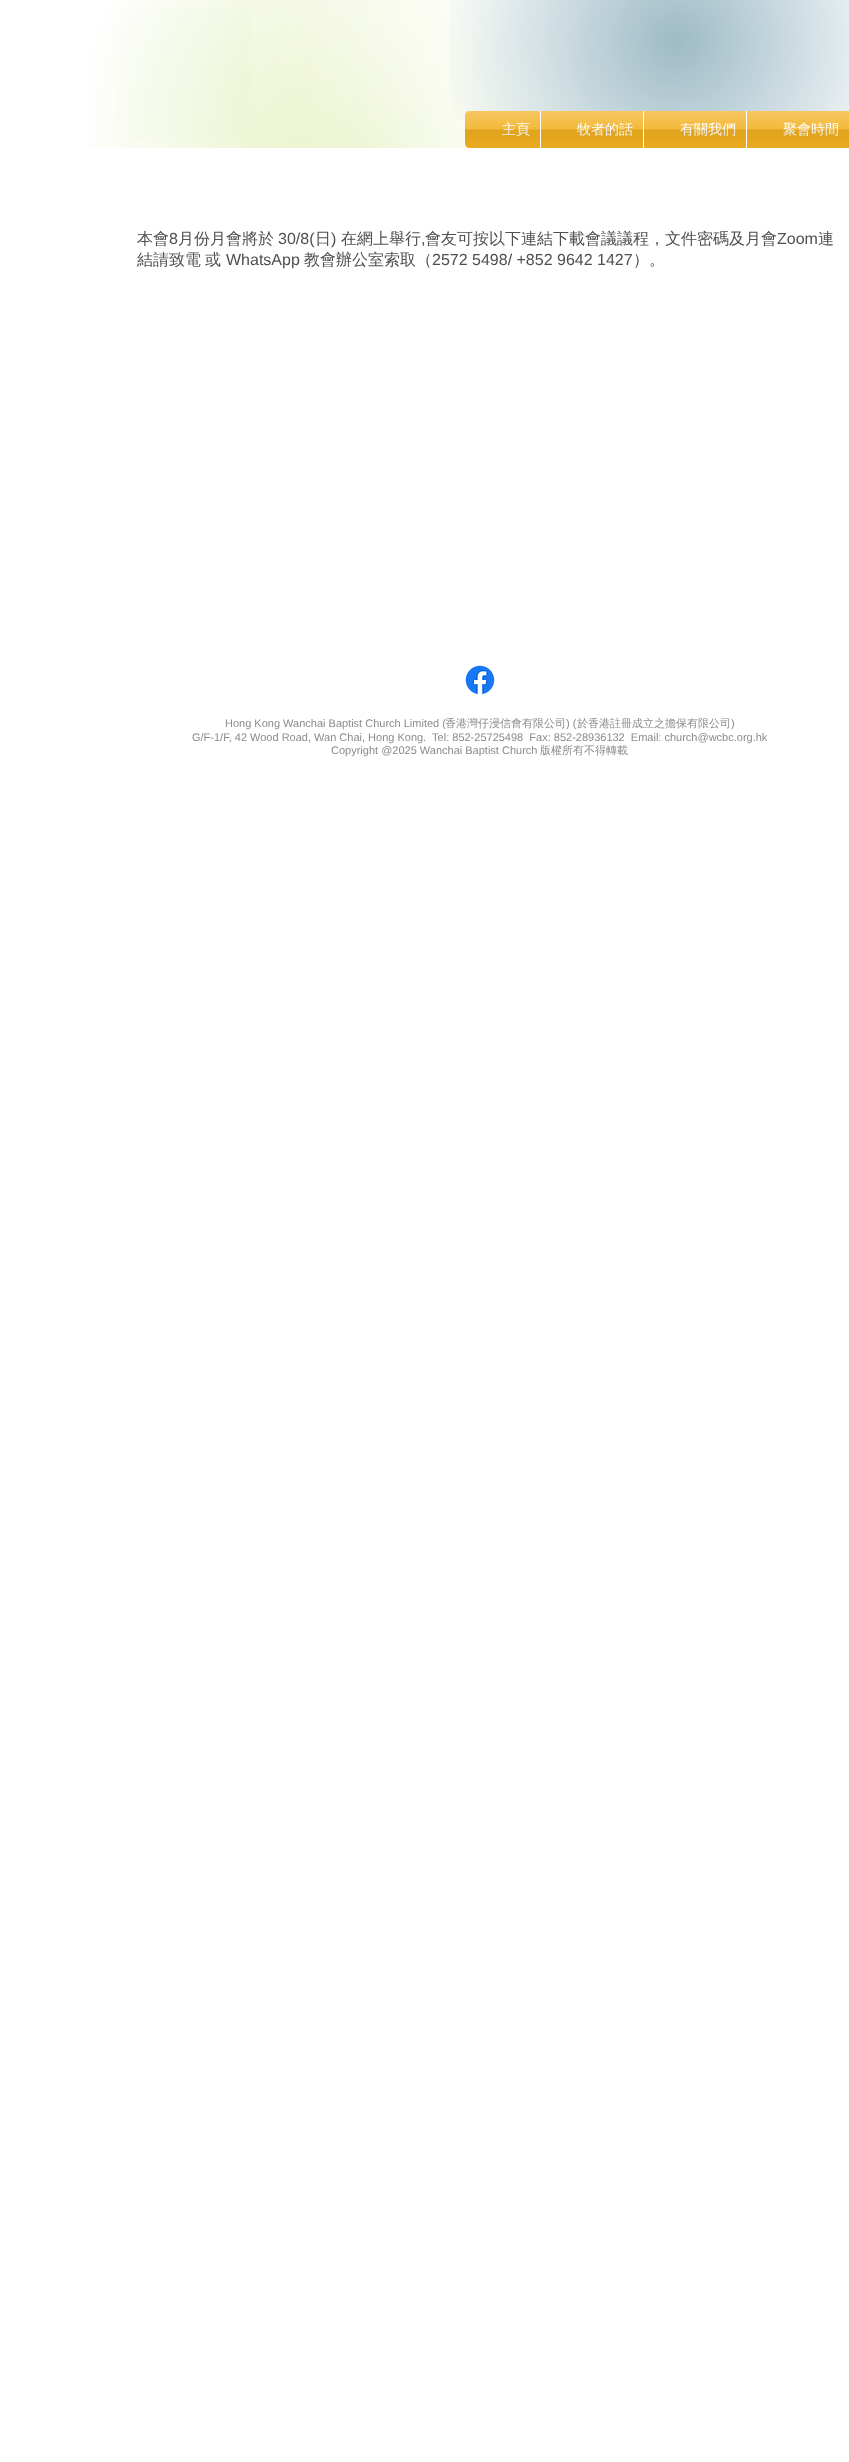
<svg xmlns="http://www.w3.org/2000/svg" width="849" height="2462">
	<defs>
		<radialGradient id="g1" gradientUnits="userSpaceOnUse" cx="184" cy="73" r="800"><stop offset="0" stop-color="#FCFEFD" /><stop offset="0.5" stop-color="#FFFFFF" /></radialGradient>
		<radialGradient id="g2" gradientUnits="userSpaceOnUse" cx="380" cy="143" r="617"><stop offset="0" stop-color="#BADA55" stop-opacity="0.41" /><stop offset="0.5" stop-color="#BADA55" stop-opacity="0" /></radialGradient>
		<radialGradient id="g3" gradientUnits="userSpaceOnUse" cx="576" cy="16" r="591"><stop offset="0" stop-color="#FFFFFF" /><stop offset="0.6" stop-color="#FFFFFF" stop-opacity="0" /></radialGradient>
		<radialGradient id="g4" gradientUnits="userSpaceOnUse" cx="814" cy="97" r="820"><stop offset="0" stop-color="#FFFFFF" /><stop offset="0.65" stop-color="#FFFFFF" stop-opacity="0" /></radialGradient>
		<radialGradient id="g5" gradientUnits="userSpaceOnUse" cx="678" cy="41" r="687"><stop offset="0" stop-color="#115873" stop-opacity="0.41" /><stop offset="0.35" stop-color="#115873" stop-opacity="0" /></radialGradient>
	</defs>
	<rect width="100%" height="100%" fill="#FFFFFF" />
	<rect x="118" y="6" width="133" height="134" fill="url(#g1)" />
	<rect x="87" y="0" width="584" height="148" fill="url(#g2)" />
	<rect x="249" y="0" width="421" height="148" fill="url(#g3)" />
	<rect x="313" y="0" width="339" height="148" fill="url(#g4)" />
	<rect x="450" y="0" width="399" height="120" fill="url(#g5)" />
	<image x="465" y="111" width="5" height="37" href="assets/img1.png" />
	<path d="M470 111H540V148H470C467 148 465 146 465 143V116C465 113 467 111 470 111Z" fill="#F2B021" />
	<text x="502" y="134" font-family="WenQuanYi Zen Hei" font-size="14" font-weight="500" fill="#FFFFFF">主頁</text>
	<image x="465" y="111" width="75" height="37" href="assets/img2.png" />
	<rect x="541" y="111" width="102" height="37" fill="#F2B021" />
	<rect x="540" y="111" width="1" height="37" fill="#FFFFFF" />
	<text x="577" y="134" font-family="WenQuanYi Zen Hei" font-size="14" font-weight="500" fill="#FFFFFF">牧者的話</text>
	<image x="541" y="111" width="102" height="37" href="assets/img3.png" />
	<rect x="644" y="111" width="102" height="37" fill="#F2B021" />
	<rect x="643" y="111" width="1" height="9" fill="#FFFFFF" />
	<text x="680" y="134" font-family="WenQuanYi Zen Hei" font-size="14" font-weight="500" fill="#FFFFFF">有關我們</text>
	<image x="644" y="111" width="102" height="37" href="assets/img4.png" />
	<rect x="747" y="111" width="102" height="37" fill="#F2B021" />
	<rect x="746" y="111" width="1" height="9" fill="#FFFFFF" />
	<text x="783" y="134" font-family="WenQuanYi Zen Hei" font-size="14" font-weight="500" fill="#FFFFFF">聚會時間</text>
	<image x="747" y="111" width="102" height="37" href="assets/img5.png" />
	<text x="137" y="244" font-family="WenQuanYi Zen Hei" font-size="16" font-weight="500" fill="#4F4F4F">本會</text>
	<text x="169" y="244" font-family="Liberation Sans" font-size="16" fill="#4F4F4F">8</text>
	<text x="178" y="244" font-family="WenQuanYi Zen Hei" font-size="16" font-weight="500" fill="#4F4F4F">月份月會將於</text>
	<text x="278" y="244" font-family="Liberation Sans" font-size="16" fill="#4F4F4F">30/8(</text>
	<text x="315" y="244" font-family="WenQuanYi Zen Hei" font-size="16" font-weight="500" fill="#4F4F4F">日</text>
	<text x="331" y="244" font-family="Liberation Sans" font-size="16" fill="#4F4F4F">)</text>
	<text x="341" y="244" font-family="WenQuanYi Zen Hei" font-size="16" font-weight="500" fill="#4F4F4F">在網上舉行</text>
	<text x="421" y="244" font-family="Liberation Sans" font-size="16" fill="#4F4F4F">,</text>
	<text x="425" y="244" font-family="WenQuanYi Zen Hei" font-size="16" font-weight="500" fill="#4F4F4F">會友可按以下連結下載會議議程，文件密碼及月會</text>
	<text x="777" y="244" font-family="Liberation Sans" font-size="16" fill="#4F4F4F">Zoom</text>
	<g font-family="WenQuanYi Zen Hei" font-size="16" font-weight="500" fill="#4F4F4F">
		<text x="818" y="244">連</text>
		<text x="137" y="265">結請致電</text>
		<text x="205" y="265">或</text>
	</g>
	<text x="226" y="265" font-family="Liberation Sans" font-size="16" fill="#4F4F4F">WhatsApp</text>
	<text x="304" y="265" font-family="WenQuanYi Zen Hei" font-size="16" font-weight="500" fill="#4F4F4F">教會辦公室索取（</text>
	<text x="432" y="265" font-family="Liberation Sans" font-size="16" fill="#4F4F4F">2572 5498/ +852 9642 1427</text>
	<text x="633" y="265" font-family="WenQuanYi Zen Hei" font-size="16" font-weight="500" fill="#4F4F4F">）。</text>
	<image x="465" y="665" width="30" height="30" href="assets/img6.png" />
	<text x="225" y="727" font-family="Liberation Sans" font-size="11" fill="#8B8B8B">Hong Kong Wanchai Baptist Church Limited (</text>
	<text x="445" y="727" font-family="WenQuanYi Zen Hei" font-size="11" font-weight="500" fill="#8B8B8B">香港灣仔浸信會有限公司</text>
	<text x="566" y="727" font-family="Liberation Sans" font-size="11" fill="#8B8B8B">) (</text>
	<text x="577" y="727" font-family="WenQuanYi Zen Hei" font-size="11" font-weight="500" fill="#8B8B8B">於香港註冊成立之擔保有限公司</text>
	<g font-family="Liberation Sans" font-size="11" fill="#8B8B8B">
		<text x="731" y="727">)</text>
		<text x="192" y="741" xml:space="preserve">G/F-1/F, 42 Wood Road, Wan Chai, Hong Kong.  Tel: 852-25725498  Fax: 852-28936132  Email: church@wcbc.org.hk</text>
		<text x="331" y="754">Copyright @2025 Wanchai Baptist Church</text>
	</g>
	<text x="540" y="754" font-family="WenQuanYi Zen Hei" font-size="11" font-weight="500" fill="#8B8B8B">版權所有不得轉載</text>
</svg>
